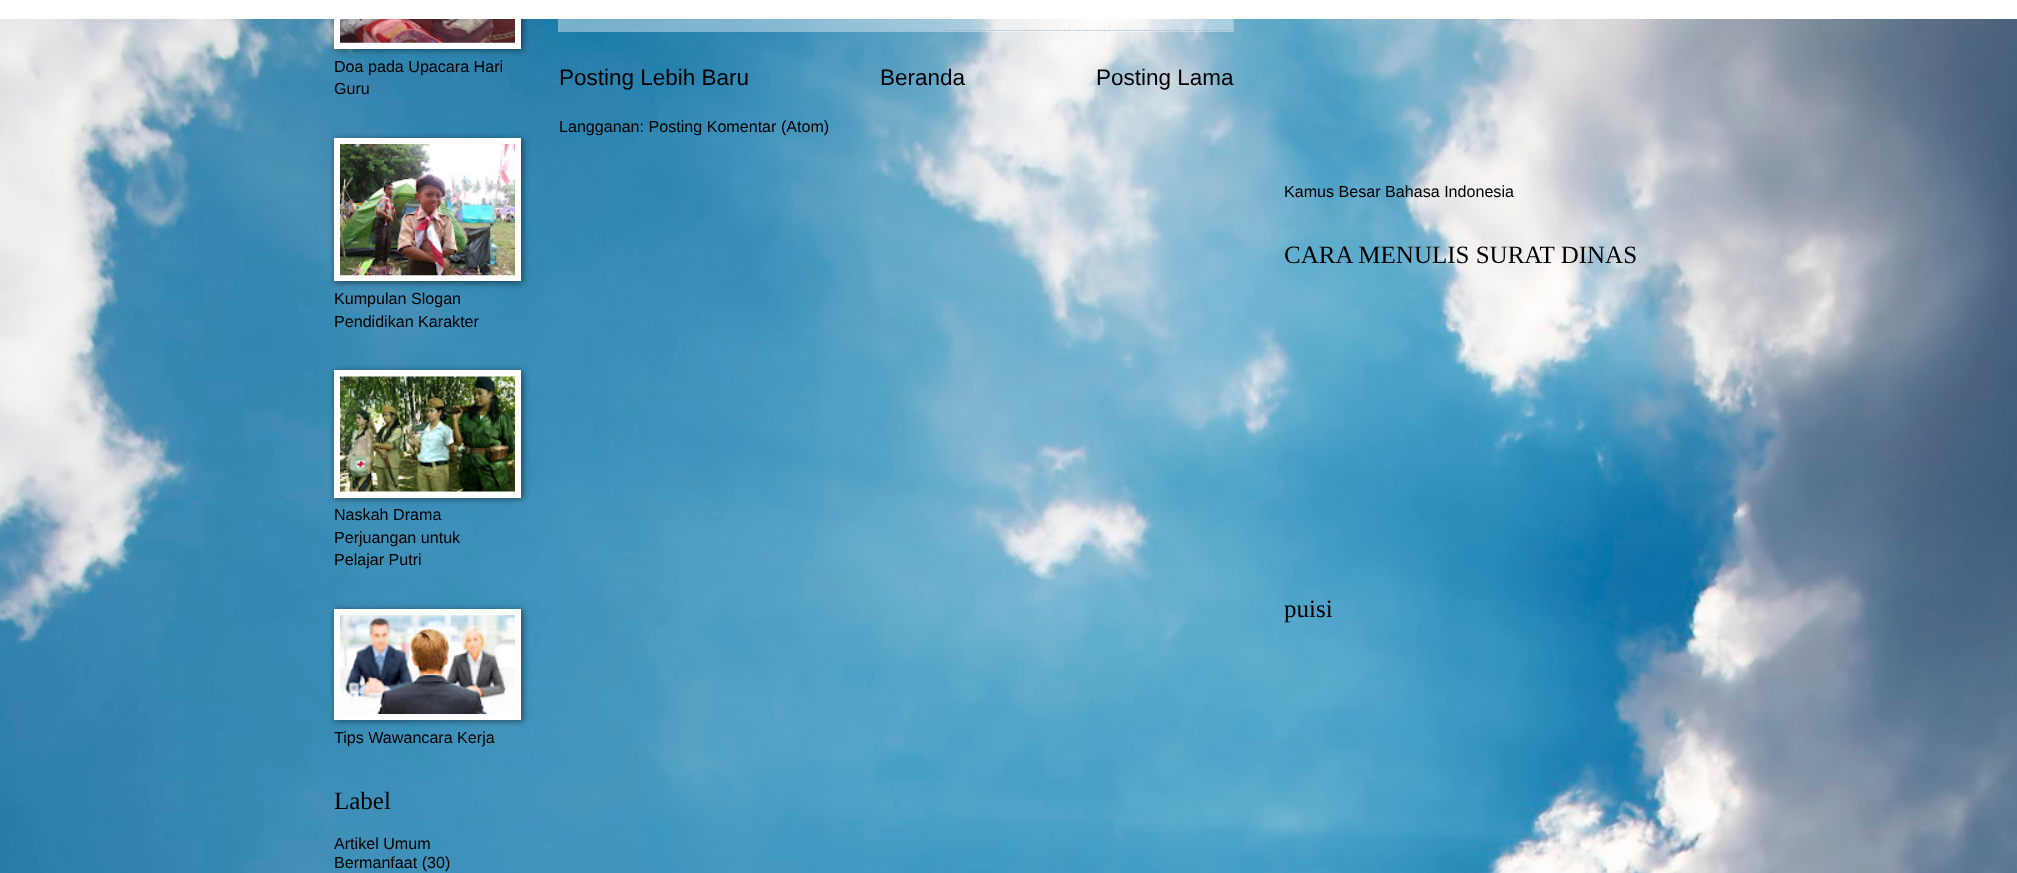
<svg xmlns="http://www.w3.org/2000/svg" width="2017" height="873">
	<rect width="100%" height="100%" fill="#FFFFFF" />
	<image x="0" y="19" width="2017" height="854" href="assets/img1.png" />
	<rect x="335" y="-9" width="188" height="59" fill="#000000" fill-opacity="0.5" filter="blur(3px)" />
	<rect x="558" y="19" width="676" height="13" fill="#FFFFFF" fill-opacity="0.4" />
	<path d="M1233-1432.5V31" fill="none" stroke="#97B3CB" stroke-width="1.2" stroke-dasharray="1.25 1.25" />
	<path d="M559 30.5H1234" fill="none" stroke="#97B3CB" stroke-width="1.2" stroke-dasharray="1.25 1.25" />
	<path d="M559.5-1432.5V31" fill="none" stroke="#97B3CB" stroke-width="1.2" stroke-dasharray="1.25 1.25" />
	<rect x="329" y="0" width="905" height="19" fill="#FFFFFF" />
	<rect x="334" y="19" width="187" height="30" fill="#FFFFFF" />
	<image x="340" y="19" width="175" height="24" href="assets/img2.png" />
	<g font-family="Liberation Sans" font-size="16.1" fill="#000000">
		<text x="334" y="72">Doa pada Upacara Hari</text>
		<text x="334" y="94">Guru</text>
	</g>
	<rect x="335" y="139" width="188" height="144" fill="#000000" fill-opacity="0.5" filter="blur(3px)" />
	<rect x="334" y="138" width="187" height="143" fill="#FFFFFF" />
	<image x="340" y="144" width="175" height="132" href="assets/img3.png" />
	<g font-family="Liberation Sans" font-size="16.1" fill="#000000">
		<text x="334" y="304">Kumpulan Slogan</text>
		<text x="334" y="327">Pendidikan Karakter</text>
	</g>
	<rect x="335" y="371" width="188" height="128" fill="#000000" fill-opacity="0.5" filter="blur(3px)" />
	<rect x="334" y="370" width="187" height="128" fill="#FFFFFF" />
	<image x="340" y="376" width="175" height="116" href="assets/img4.png" />
	<g font-family="Liberation Sans" font-size="16.1" fill="#000000">
		<text x="334" y="520">Naskah Drama</text>
		<text x="334" y="543">Perjuangan untuk</text>
		<text x="334" y="565">Pelajar Putri</text>
	</g>
	<rect x="335" y="610" width="188" height="111" fill="#000000" fill-opacity="0.5" filter="blur(3px)" />
	<rect x="334" y="609" width="187" height="111" fill="#FFFFFF" />
	<image x="340" y="615" width="175" height="99" href="assets/img5.png" />
	<text x="334" y="743" font-family="Liberation Sans" font-size="16.1" fill="#000000">Tips Wawancara Kerja</text>
	<text x="334" y="809" font-family="Liberation Serif" font-size="25" fill="#000000">Label</text>
	<g font-family="Liberation Sans" font-size="16.1" fill="#000000">
		<text x="334" y="849">Artikel Umum</text>
		<text x="334" y="868">Bermanfaat (30)</text>
	</g>
	<g font-family="Liberation Sans" font-size="22.5" fill="#000000">
		<text x="559" y="85">Posting Lebih Baru</text>
		<text x="880" y="85">Beranda</text>
		<text x="1096" y="85">Posting Lama</text>
	</g>
	<g font-family="Liberation Sans" font-size="16.1" fill="#000000">
		<text x="559" y="132">Langganan: Posting Komentar (Atom)</text>
		<text x="1284" y="197">Kamus Besar Bahasa Indonesia</text>
	</g>
	<g font-family="Liberation Serif" font-size="25" fill="#000000">
		<text x="1284" y="263">CARA MENULIS SURAT DINAS</text>
		<text x="1284" y="617">puisi</text>
	</g>
</svg>
